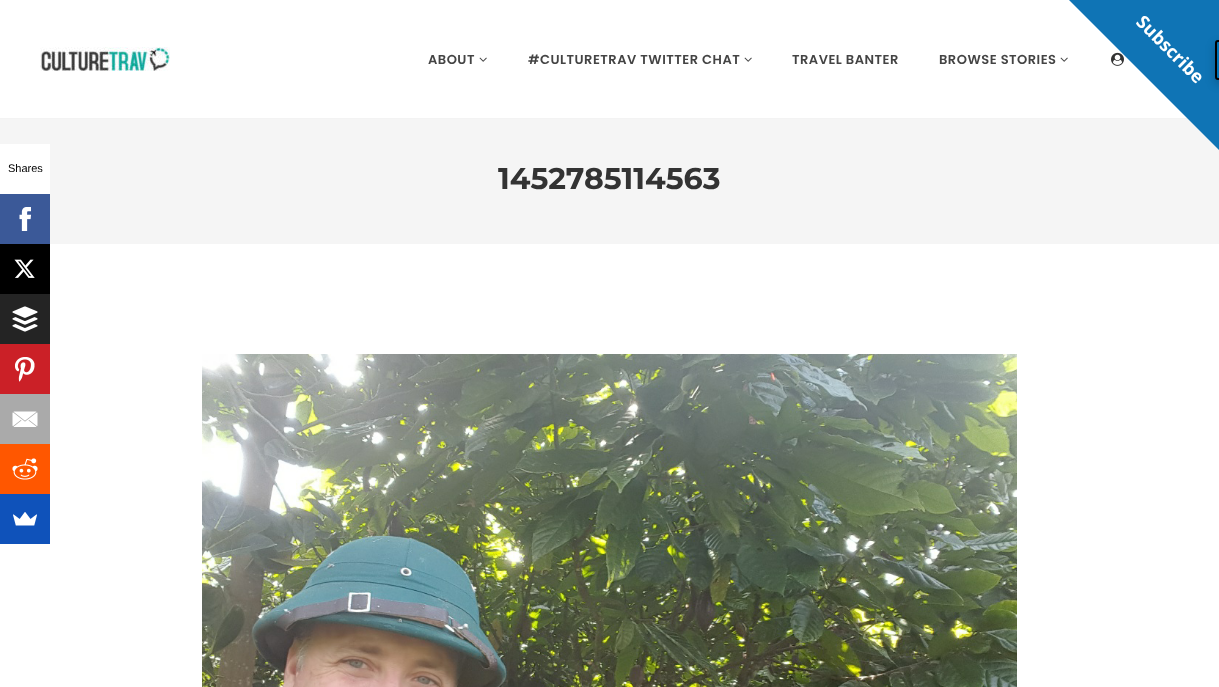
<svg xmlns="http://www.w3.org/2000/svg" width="1219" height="687">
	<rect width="100%" height="100%" fill="#FFFFFF" />
	<rect x="0" y="119" width="1219" height="125" fill="#F5F5F5" />
	<rect x="0" y="144" width="50" height="50" fill="#FFFFFF" />
	<text x="8" y="172" font-family="Liberation Sans" font-size="11" fill="#000000">Shares</text>
	<rect x="0" y="194" width="50" height="50" fill="#3B5998" />
	<image x="19" y="207" width="12" height="24" href="assets/img1.png" />
	<rect x="0" y="244" width="50" height="50" fill="#000000" />
	<image x="14" y="259" width="21" height="19" href="assets/img2.png" />
	<rect x="0" y="294" width="50" height="50" fill="#242424" />
	<image x="12" y="306" width="26" height="26" href="assets/img3.png" />
	<rect x="0" y="344" width="50" height="50" fill="#CB2027" />
	<image x="15" y="357" width="20" height="25" href="assets/img4.png" />
	<rect x="0" y="394" width="50" height="50" fill="#AAAAAA" />
	<image x="12" y="411" width="26" height="16" href="assets/img5.png" />
	<rect x="0" y="444" width="50" height="50" fill="#FF5700" />
	<image x="12" y="458" width="26" height="22" href="assets/img6.png" />
	<rect x="0" y="494" width="50" height="50" fill="#0F52BA" />
	<image x="13" y="512" width="24" height="14" href="assets/img7.png" />
	<rect x="0" y="118" width="1188" height="1" fill="#F3F3F3" />
	<image x="40" y="47" width="130" height="24" href="assets/img8.png" />
	<text x="428" y="64" font-family="Poppins" font-size="13" font-weight="600" letter-spacing="0.5" fill="#444444">ABOUT</text>
	<image x="479" y="57" width="8" height="5" href="assets/img9.png" />
	<text x="528" y="64" font-family="Poppins" font-size="13" font-weight="600" letter-spacing="0.5" fill="#444444">#CULTURETRAV TWITTER CHAT</text>
	<image x="744" y="57" width="8" height="5" href="assets/img9.png" />
	<g font-family="Poppins" font-size="13" font-weight="600" letter-spacing="0.5" fill="#444444">
		<text x="792" y="64">TRAVEL BANTER</text>
		<text x="939" y="64">BROWSE STORIES</text>
	</g>
	<image x="1060" y="57" width="8" height="5" href="assets/img9.png" />
	<image x="1111" y="52" width="13" height="14" href="assets/img10.png" />
	<text x="498" y="189" font-family="Montserrat" font-size="30" font-weight="700" fill="#333333">1452785114563</text>
	<image x="202" y="354" width="815" height="333" href="assets/img11.png" />
	<path d="M1069 0H1219V150Z" fill="#0F74B5" />
	<text x="1135" y="23" transform="rotate(45 1135 23)" font-family="Open Sans" font-size="18" font-weight="700" fill="#FFFFFF">Subscribe</text>
	<rect x="1215" y="44" width="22" height="40" rx="3" fill="#000000" fill-opacity="0.2" filter="blur(5px)" />
	<path d="M1218 41H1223V79H1218C1217 79 1216 78 1216 77V43C1216 42 1217 41 1218 41Z" fill="#0073B7" stroke="#000000" stroke-width="2" />
</svg>
